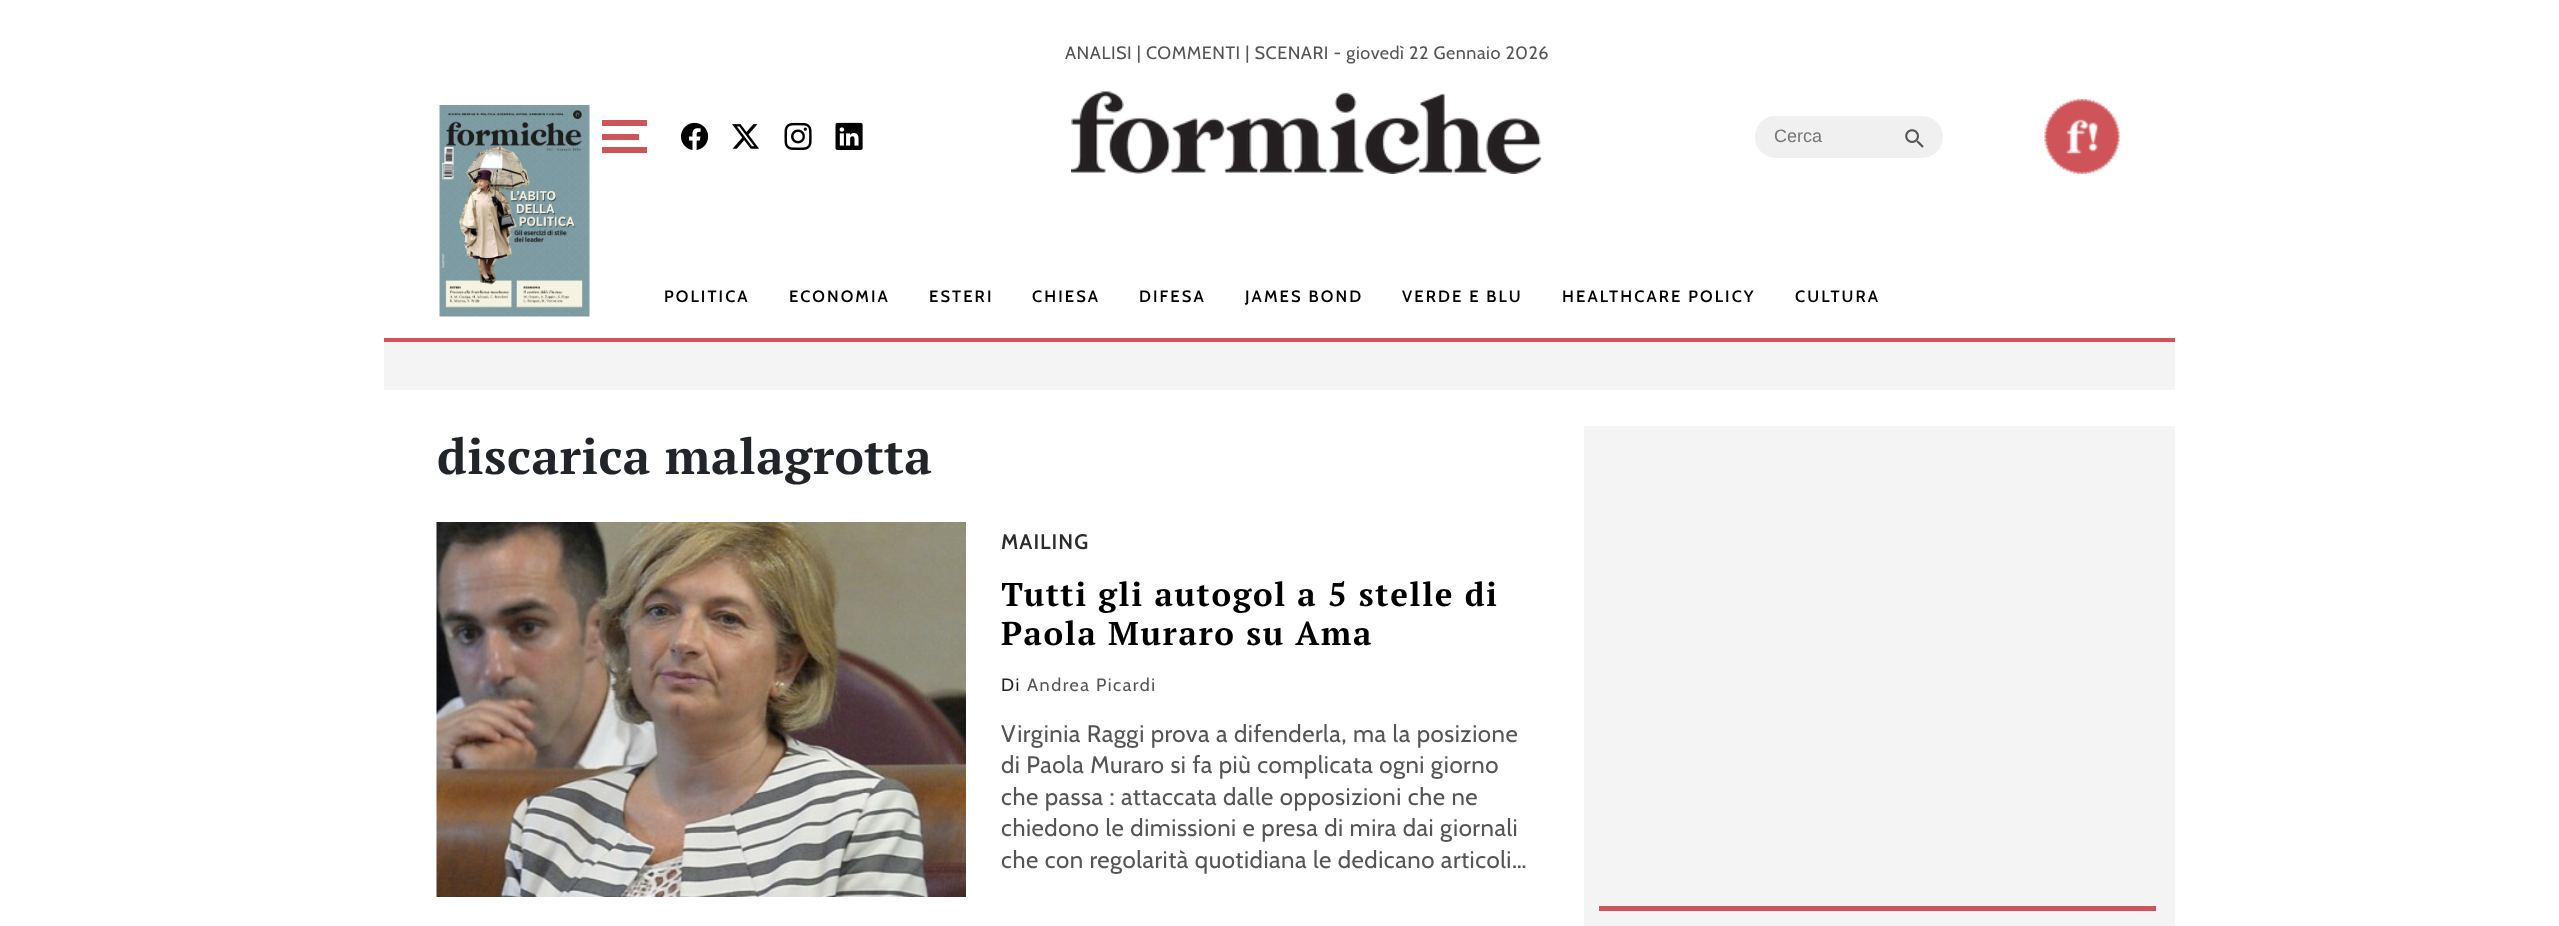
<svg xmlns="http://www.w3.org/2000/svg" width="2559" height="926">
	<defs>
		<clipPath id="clip1"><rect x="1002" y="575" width="528" height="79" /></clipPath>
	</defs>
	<rect width="100%" height="100%" fill="#FFFFFF" />
	<rect x="384" y="338" width="1791" height="4" fill="#CF5459" />
	<text x="1065" y="59" font-family="Cabin" font-size="18" letter-spacing="0.52" fill="#555555">ANALISI | COMMENTI | SCENARI - giovedì 22 Gennaio 2026</text>
	<image x="1071" y="91" width="471" height="83" href="assets/img1.png" />
	<image x="439" y="105" width="151" height="212" href="assets/img2.png" />
	<rect x="602" y="120" width="45" height="6" fill="#CF5459" />
	<rect x="602" y="134" width="37" height="6" fill="#CF5459" />
	<rect x="602" y="147" width="45" height="6" fill="#CF5459" />
	<image x="681" y="122" width="28" height="28" href="assets/img3.png" />
	<image x="732" y="124" width="27" height="25" href="assets/img4.png" />
	<image x="784" y="122" width="28" height="28" href="assets/img5.png" />
	<image x="835" y="122" width="28" height="28" href="assets/img6.png" />
	<path d="M1776 116H1889V158H1776C1764.5 158 1755 148.5 1755 137C1755 125.5 1764.5 116 1776 116Z" fill="#F0F0F0" />
	<path d="M1776 116H1888V158L1772 157C1747 152 1751 116 1776 116ZM1776 117H1888V156H1776C1765 156 1756 147 1756 136C1756 126 1765 117 1776 117Z" fill="#F0F0F0" fill-rule="evenodd" />
	<text x="1774" y="142" font-family="Liberation Sans" font-size="18" fill="#757575">Cerca</text>
	<path d="M1890 117H1922C1933 117 1942 126 1942 137C1942 148 1933 157 1922 157H1890Z" fill="#F0F0F0" stroke="#F0F0F0" stroke-width="2" />
	<image x="1905" y="129" width="19" height="19" href="assets/img7.png" />
	<image x="2044" y="99" width="76" height="75" href="assets/img8.png" />
	<g font-family="Cabin" font-size="16.5" font-weight="600" letter-spacing="2.1" fill="#000000">
		<text x="664" y="302">POLITICA</text>
		<text x="789" y="302">ECONOMIA</text>
		<text x="929" y="302">ESTERI</text>
		<text x="1032" y="302">CHIESA</text>
		<text x="1139" y="302">DIFESA</text>
		<text x="1245" y="302">JAMES BOND</text>
		<text x="1402" y="302">VERDE E BLU</text>
		<text x="1562" y="302">HEALTHCARE POLICY</text>
		<text x="1795" y="302">CULTURA</text>
	</g>
	<rect x="384" y="342" width="1791" height="48" fill="#F4F4F4" />
	<text x="437" y="474" font-family="PT Serif" font-size="49.5" font-weight="700" letter-spacing="0.52" fill="#212529">discarica malagrotta</text>
	<image x="436" y="522" width="530" height="375" href="assets/img9.png" />
	<text x="1001" y="549" font-family="Cabin" font-size="21" font-weight="600" letter-spacing="1" fill="#2C2C2C">MAILING</text>
	<g clip-path="url(#clip1)">
		<text x="1001" y="606" font-family="PT Serif" font-size="33" font-weight="700" letter-spacing="1.65" fill="#000000">Tutti gli autogol a 5 stelle di</text>
	</g>
	<text x="1001" y="645" font-family="PT Serif" font-size="33" font-weight="700" letter-spacing="1.65" fill="#000000">Paola Muraro su Ama</text>
	<text x="1001" y="691" font-family="Cabin" font-size="18" letter-spacing="1.5" fill="#212529">Di</text>
	<text x="1027" y="691" font-family="Cabin" font-size="18" letter-spacing="1.5" fill="#555555">Andrea Picardi</text>
	<g font-family="Cabin" font-size="24" letter-spacing="0.52" fill="#555555">
		<text x="1001" y="742">Virginia Raggi prova a difenderla, ma la posizione</text>
		<text x="1001" y="773">di Paola Muraro si fa più complicata ogni giorno</text>
		<text x="1001" y="805">che passa : attaccata dalle opposizioni che ne</text>
		<text x="1001" y="836">chiedono le dimissioni e presa di mira dai giornali</text>
		<text x="1001" y="868">che con regolarità quotidiana le dedicano articoli…</text>
	</g>
	<rect x="1584" y="426" width="591" height="500" fill="#F4F4F4" />
	<rect x="1599" y="906" width="557" height="5" fill="#CF5459" />
</svg>
